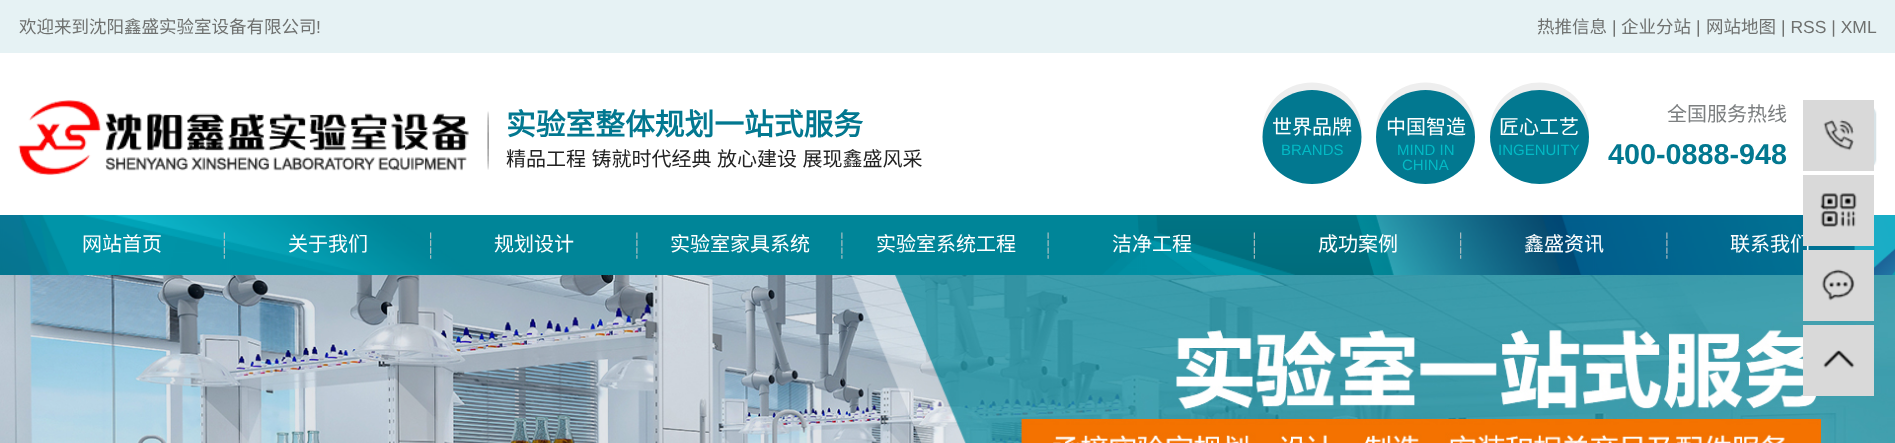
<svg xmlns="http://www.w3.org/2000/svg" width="1895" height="443">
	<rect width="100%" height="100%" fill="#FFFFFF" />
	<rect x="0" y="0" width="1895" height="53" fill="#E6F2F4" />
	<text x="19" y="33" font-family="Noto Sans CJK SC" font-size="17.5" fill="#6F716F">欢迎来到沈阳鑫盛实验室设备有限公司</text>
	<text x="316" y="33" font-family="Liberation Sans" font-size="17.5" fill="#6F716F">!</text>
	<text x="1537" y="33" font-family="Noto Sans CJK SC" font-size="17.5" fill="#6F716F">热推信息</text>
	<text x="1612" y="33" font-family="Liberation Sans" font-size="17.5" fill="#6F716F">|</text>
	<text x="1621" y="33" font-family="Noto Sans CJK SC" font-size="17.5" fill="#6F716F">企业分站</text>
	<text x="1696" y="33" font-family="Liberation Sans" font-size="17.5" fill="#6F716F">|</text>
	<text x="1706" y="33" font-family="Noto Sans CJK SC" font-size="17.5" fill="#6F716F">网站地图</text>
	<text x="1781" y="33" font-family="Liberation Sans" font-size="17.5" fill="#6F716F">| RSS | XML</text>
	<image x="18" y="100" width="451" height="75" href="assets/img1.png" />
	<image x="487" y="111" width="2" height="59" href="assets/img2.png" />
	<text x="506" y="135" font-family="Noto Sans CJK SC" font-size="29.75" font-weight="700" fill="#027890">实验室整体规划一站式服务</text>
	<text x="506" y="166" word-spacing="1" font-family="Noto Sans CJK SC" font-size="20" fill="#222222">精品工程 铸就时代经典 放心建设 展现鑫盛风采</text>
	<ellipse cx="1312" cy="129.5" rx="49.5" ry="47" fill="#EEEEEE" />
	<ellipse cx="1312" cy="137" rx="49.5" ry="47" fill="#027890" />
	<text x="1272" y="134" font-family="Noto Sans CJK SC" font-size="20" fill="#FFFFFF">世界品牌</text>
	<text x="1281" y="155" font-family="Liberation Sans" font-size="15" fill="#03BAC5">BRANDS</text>
	<ellipse cx="1425.5" cy="129.5" rx="49.5" ry="47" fill="#EEEEEE" />
	<ellipse cx="1425.5" cy="137" rx="49.5" ry="47" fill="#027890" />
	<text x="1386" y="134" font-family="Noto Sans CJK SC" font-size="20" fill="#FFFFFF">中国智造</text>
	<g font-family="Liberation Sans" font-size="15" fill="#03BAC5">
		<text x="1397" y="155">MIND IN</text>
		<text x="1402" y="170">CHINA</text>
	</g>
	<ellipse cx="1539.5" cy="129.5" rx="49.5" ry="47" fill="#EEEEEE" />
	<ellipse cx="1539.5" cy="137" rx="49.5" ry="47" fill="#027890" />
	<text x="1499" y="134" font-family="Noto Sans CJK SC" font-size="20" fill="#FFFFFF">匠心工艺</text>
	<text x="1498" y="155" font-family="Liberation Sans" font-size="15" fill="#03BAC5">INGENUITY</text>
	<image x="1874" y="108" width="3" height="58" href="assets/img3.png" />
	<text x="1667" y="121" font-family="Noto Sans CJK SC" font-size="20" fill="#7C7F80">全国服务热线</text>
	<text x="1608" y="164" font-family="Liberation Sans" font-size="28.75" font-weight="700" fill="#027890">400-0888-948</text>
	<image x="0" y="215" width="1895" height="60" href="assets/img4.png" />
	<image x="223" y="232" width="2" height="27" href="assets/img5.png" />
	<text x="82" y="251" font-family="Noto Sans CJK SC" font-size="20" fill="#FFFFFF">网站首页</text>
	<image x="430" y="232" width="2" height="27" href="assets/img6.png" />
	<text x="288" y="251" font-family="Noto Sans CJK SC" font-size="20" fill="#FFFFFF">关于我们</text>
	<image x="636" y="232" width="2" height="27" href="assets/img7.png" />
	<text x="494" y="251" font-family="Noto Sans CJK SC" font-size="20" fill="#FFFFFF">规划设计</text>
	<image x="841" y="232" width="2" height="27" href="assets/img7.png" />
	<text x="670" y="251" font-family="Noto Sans CJK SC" font-size="20" fill="#FFFFFF">实验室家具系统</text>
	<image x="1047" y="232" width="2" height="27" href="assets/img8.png" />
	<text x="876" y="251" font-family="Noto Sans CJK SC" font-size="20" fill="#FFFFFF">实验室系统工程</text>
	<image x="1253" y="232" width="2" height="27" href="assets/img9.png" />
	<text x="1112" y="251" font-family="Noto Sans CJK SC" font-size="20" fill="#FFFFFF">洁净工程</text>
	<image x="1460" y="232" width="2" height="27" href="assets/img10.png" />
	<text x="1318" y="251" font-family="Noto Sans CJK SC" font-size="20" fill="#FFFFFF">成功案例</text>
	<image x="1666" y="232" width="2" height="27" href="assets/img11.png" />
	<g font-family="Noto Sans CJK SC" font-size="20" fill="#FFFFFF">
		<text x="1524" y="251">鑫盛资讯</text>
		<text x="1730" y="251">联系我们</text>
	</g>
	<rect x="1803" y="100" width="71" height="71" fill="#D9D9D9" />
	<image x="1823" y="119" width="31" height="32" href="assets/img12.png" />
	<rect x="1803" y="175" width="71" height="71" fill="#D9D9D9" />
	<image x="1820" y="193" width="37" height="34" href="assets/img13.png" />
	<image x="0" y="275" width="1895" height="168" href="assets/img16.png" />
	<rect x="1803" y="250" width="71" height="71" fill="#D9D9D9" />
	<image x="1821" y="269" width="34" height="32" href="assets/img14.png" />
	<rect x="1803" y="325" width="71" height="71" fill="#D9D9D9" />
	<image x="1823" y="350" width="32" height="18" href="assets/img15.png" />
</svg>
